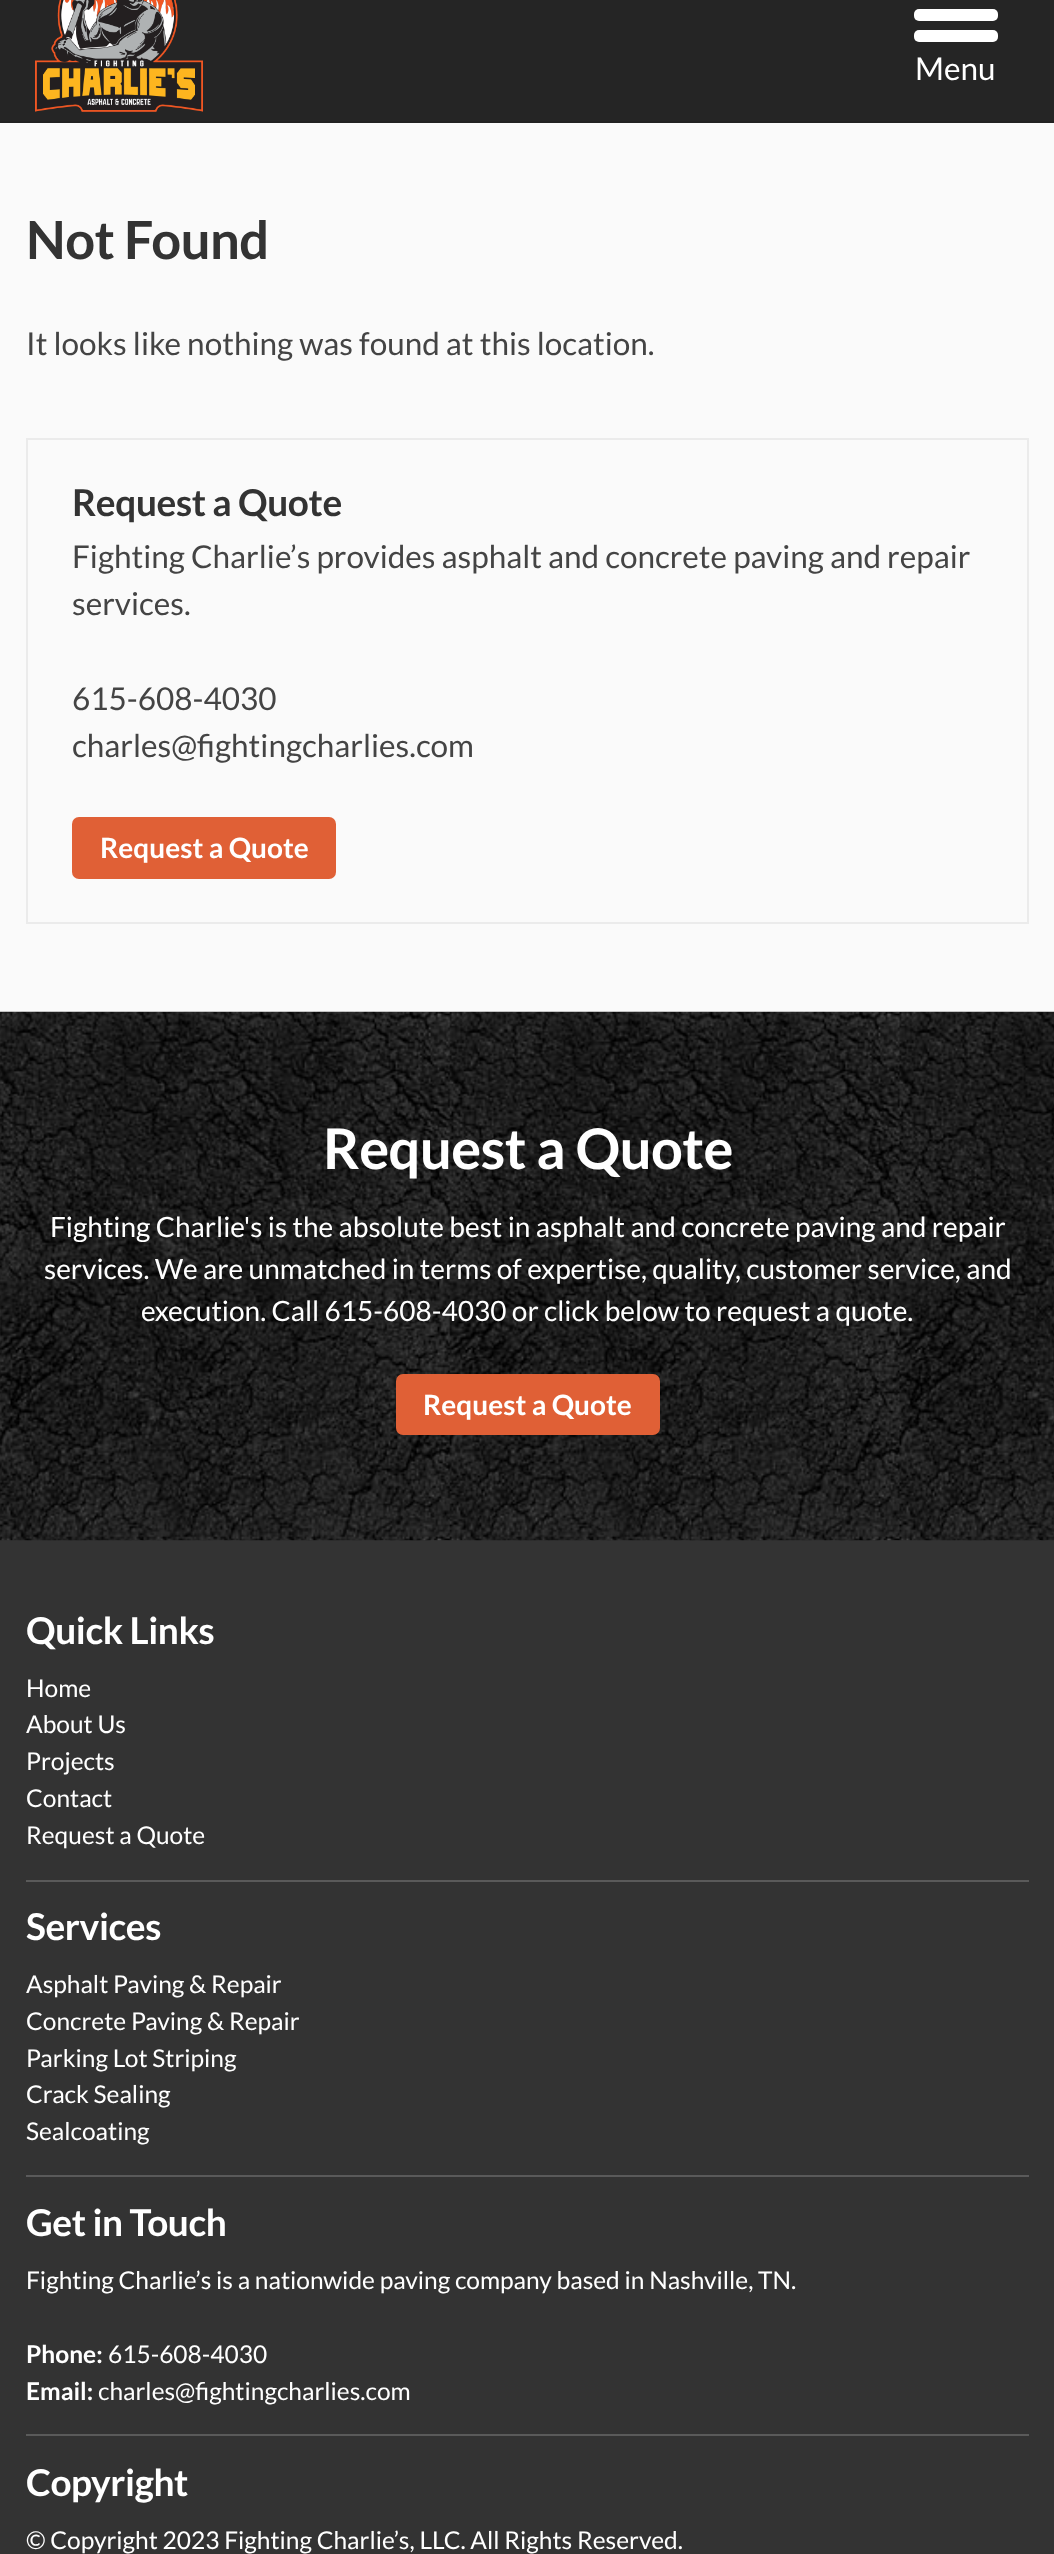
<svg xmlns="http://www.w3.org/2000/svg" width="1054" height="2554">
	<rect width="100%" height="100%" fill="#FAFAFA" />
	<rect x="0" y="0" width="1054" height="121" fill="#252525" />
	<rect x="0" y="121" width="1054" height="2" fill="#222222" />
	<image x="35" y="0" width="168" height="112" href="assets/img1.png" />
	<rect x="914" y="9" width="84" height="12" rx="5" fill="#FFFFFF" />
	<rect x="914" y="30" width="84" height="12" rx="5" fill="#FFFFFF" />
	<text x="915" y="80" font-family="Lato" font-size="31.5" fill="#FFFFFF">Menu</text>
	<text x="26" y="259" font-family="Lato" font-size="52.5" font-weight="700" letter-spacing="-0.5" fill="#333333">Not Found</text>
	<text x="26" y="355" font-family="Lato" font-size="31.5" fill="#444444">It looks like nothing was found at this location.</text>
	<rect x="27" y="439" width="1001" height="484" fill="none" stroke="#EBEBEB" stroke-width="2" />
	<text x="72" y="516" font-family="Lato" font-size="37" font-weight="700" letter-spacing="-0.4" fill="#333333">Request a Quote</text>
	<g font-family="Lato" font-size="31.5" fill="#444444">
		<text x="72" y="568">Fighting Charlie’s provides asphalt and concrete paving and repair</text>
		<text x="72" y="615">services.</text>
		<text x="72" y="710">615-608-4030</text>
		<text x="72" y="757">charles@fightingcharlies.com</text>
	</g>
	<rect x="72" y="817" width="264" height="62" rx="7" fill="#E06036" />
	<text x="100" y="858" font-family="Lato" font-size="28" font-weight="700" fill="#FFFFFF">Request a Quote</text>
	<rect x="0" y="1540" width="1054" height="1014" fill="#333333" />
	<image x="0" y="1011" width="1054" height="530" href="assets/img2.png" />
	<text x="323" y="1169" font-family="Lato" font-size="56" font-weight="700" letter-spacing="-0.5" fill="#FFFFFF">Request a Quote</text>
	<g font-family="Lato" font-size="28" fill="#FFFFFF">
		<text x="50" y="1237">Fighting Charlie's is the absolute best in asphalt and concrete paving and repair</text>
		<text x="44" y="1279">services. We are unmatched in terms of expertise, quality, customer service, and</text>
		<text x="141" y="1321">execution. Call 615-608-4030 or click below to request a quote.</text>
	</g>
	<rect x="396" y="1374" width="264" height="61" rx="7" fill="#E06036" />
	<text x="423" y="1415" font-family="Lato" font-size="28" font-weight="700" fill="#FFFFFF">Request a Quote</text>
	<text x="26" y="1644" font-family="Lato" font-size="37" font-weight="700" letter-spacing="-0.4" fill="#FFFFFF">Quick Links</text>
	<g font-family="Lato" font-size="24.5" fill="#FFFFFF">
		<text x="26" y="1697">Home</text>
		<text x="26" y="1733">About Us</text>
		<text x="26" y="1770">Projects</text>
		<text x="26" y="1807">Contact</text>
		<text x="26" y="1844">Request a Quote</text>
	</g>
	<rect x="26" y="1880" width="1003" height="2" fill="#5A5A5A" />
	<text x="26" y="1940" font-family="Lato" font-size="37" font-weight="700" letter-spacing="-0.4" fill="#FFFFFF">Services</text>
	<g font-family="Lato" font-size="24.5" fill="#FFFFFF">
		<text x="26" y="1993">Asphalt Paving &amp; Repair</text>
		<text x="26" y="2030">Concrete Paving &amp; Repair</text>
		<text x="26" y="2067">Parking Lot Striping</text>
		<text x="26" y="2103">Crack Sealing</text>
		<text x="26" y="2140">Sealcoating</text>
	</g>
	<rect x="26" y="2175" width="1003" height="2" fill="#5A5A5A" />
	<text x="26" y="2236" font-family="Lato" font-size="37" font-weight="700" letter-spacing="-0.4" fill="#FFFFFF">Get in Touch</text>
	<text x="26" y="2289" font-family="Lato" font-size="24.5" fill="#FFFFFF">Fighting Charlie’s is a nationwide paving company based in Nashville, TN.</text>
	<text x="26" y="2363" font-family="Lato" font-size="24.5" font-weight="700" fill="#FFFFFF">Phone:</text>
	<text x="108" y="2363" font-family="Lato" font-size="24.5" fill="#FFFFFF">615-608-4030</text>
	<text x="26" y="2400" font-family="Lato" font-size="24.5" font-weight="700" fill="#FFFFFF">Email:</text>
	<text x="98" y="2400" font-family="Lato" font-size="24.5" fill="#FFFFFF">charles@fightingcharlies.com</text>
	<rect x="26" y="2434" width="1003" height="2" fill="#5A5A5A" />
	<text x="26" y="2496" font-family="Lato" font-size="37" font-weight="700" letter-spacing="-0.4" fill="#FFFFFF">Copyright</text>
	<text x="26" y="2549" font-family="Lato" font-size="24.5" fill="#FFFFFF">© Copyright 2023 Fighting Charlie’s, LLC. All Rights Reserved.</text>
</svg>
